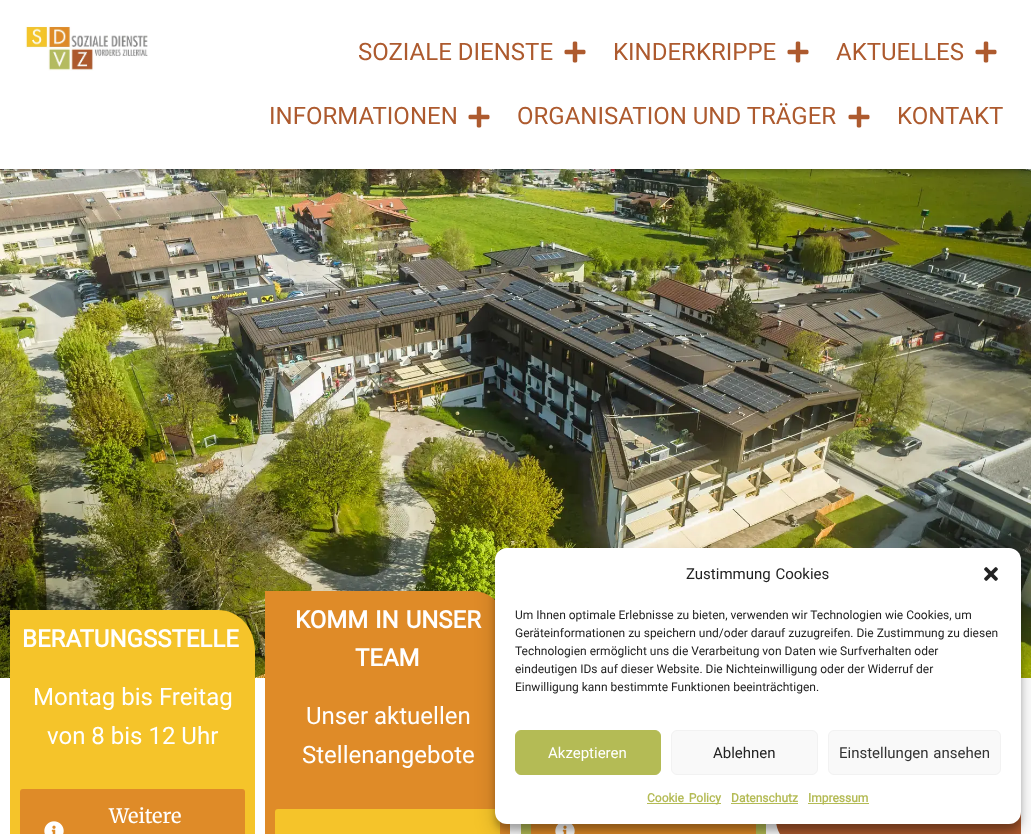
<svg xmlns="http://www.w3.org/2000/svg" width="1031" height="834">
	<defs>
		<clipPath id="clip1"><rect x="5" y="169" width="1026" height="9" /></clipPath>
	</defs>
	<rect width="100%" height="100%" fill="#FFFFFF" />
	<image x="0" y="169" width="1031" height="509" href="assets/img3.png" />
	<g clip-path="url(#clip1)">
		<rect x="12" y="0" width="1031" height="169" fill="#000000" fill-opacity="0.5" filter="blur(5px)" />
	</g>
	<image x="25" y="26" width="123" height="45" href="assets/img1.png" />
	<text x="358" y="60" font-family="Roboto" font-size="24" fill="#AD5A2E">SOZIALE DIENSTE</text>
	<image x="564" y="41" width="22" height="22" href="assets/img2.png" />
	<text x="613" y="60" font-family="Roboto" font-size="24" fill="#AD5A2E">KINDERKRIPPE</text>
	<image x="787" y="41" width="22" height="22" href="assets/img2.png" />
	<text x="836" y="60" font-family="Roboto" font-size="24" fill="#AD5A2E">AKTUELLES</text>
	<image x="975" y="41" width="22" height="22" href="assets/img2.png" />
	<text x="269" y="124" font-family="Roboto" font-size="24" fill="#AD5A2E">INFORMATIONEN</text>
	<image x="468" y="106" width="22" height="22" href="assets/img2.png" />
	<text x="517" y="124" font-family="Roboto" font-size="24" fill="#AD5A2E">ORGANISATION UND TRÄGER</text>
	<image x="848" y="106" width="22" height="22" href="assets/img2.png" />
	<text x="897" y="124" font-family="Roboto" font-size="24" fill="#AD5A2E">KONTAKT</text>
	<path d="M10 610H218C239 610 255 628 255 651V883H47C26 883 10 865 10 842Z" fill="#F5C42A" />
	<text x="22" y="647" font-family="Roboto" font-size="24" font-weight="700" fill="#FFFFFF">BERATUNGSSTELLE</text>
	<g font-family="Roboto" font-size="24" fill="#FFFFFF">
		<text x="33" y="705">Montag bis Freitag</text>
		<text x="47" y="744">von 8 bis 12 Uhr</text>
	</g>
	<rect x="20" y="789" width="225" height="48" rx="3" fill="#DF8B28" />
	<text x="109" y="823" font-family="Merriweather" font-size="20" fill="#FFFFFF">Weitere</text>
	<image x="44" y="821" width="20" height="13" href="assets/img4.png" />
	<path d="M265 591H473C494 591 510 612 510 638V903H302C281 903 265 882 265 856Z" fill="#DF8B28" />
	<g font-family="Roboto" font-size="24" font-weight="700" fill="#FFFFFF">
		<text x="295" y="628" word-spacing="1">KOMM IN UNSER</text>
		<text x="355" y="666">TEAM</text>
	</g>
	<g font-family="Roboto" font-size="24" fill="#FFFFFF">
		<text x="306" y="724">Unser aktuellen</text>
		<text x="302" y="763">Stellenangebote</text>
	</g>
	<rect x="275" y="809" width="225" height="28" rx="3" fill="#F5C42A" />
	<path d="M521 610H729C750 610 766 628 766 651V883H558C537 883 521 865 521 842Z" fill="#B4BB55" />
	<rect x="531" y="824" width="225" height="10" fill="#DF8B28" />
	<image x="555" y="824" width="20" height="10" href="assets/img5.png" />
	<path d="M776 642H984C1005 642 1021 656 1021 673V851H813C792 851 776 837 776 820Z" fill="#AD5A2E" />
	<rect x="495" y="554" width="526" height="276" rx="12" fill="#000000" fill-opacity="0.23" filter="blur(3px)" />
	<rect x="495" y="558" width="526" height="276" rx="12" fill="#000000" fill-opacity="0.19" filter="blur(10px)" />
	<rect x="495" y="548" width="526" height="276" rx="12" fill="#FFFFFF" />
	<text x="686" y="579" word-spacing="1" font-family="Roboto" font-size="15" fill="#222222">Zustimmung Cookies</text>
	<image x="984" y="567" width="14" height="14" href="assets/img6.png" />
	<g font-family="Roboto" font-size="12" fill="#222222">
		<text x="515" y="619">Um Ihnen optimale Erlebnisse zu bieten, verwenden wir Technologien wie Cookies, um</text>
		<text x="515" y="637">Geräteinformationen zu speichern und/oder darauf zuzugreifen. Die Zustimmung zu diesen</text>
		<text x="515" y="655">Technologien ermöglicht uns die Verarbeitung von Daten wie Surfverhalten oder</text>
		<text x="515" y="673">eindeutigen IDs auf dieser Website. Die Nichteinwilligung oder der Widerruf der</text>
		<text x="515" y="691">Einwilligung kann bestimmte Funktionen beeinträchtigen.</text>
	</g>
	<rect x="515.5" y="730.5" width="145" height="44" rx="5.5" fill="#B4BB55" stroke="#B4BB55" />
	<text x="548" y="758" font-family="Roboto" font-size="15" fill="#FFFFFF">Akzeptieren</text>
	<rect x="671.5" y="730.5" width="146" height="44" rx="5.5" fill="#F9F9F9" stroke="#F2F2F2" />
	<text x="713" y="758" font-family="Roboto" font-size="15" fill="#222222">Ablehnen</text>
	<rect x="828.5" y="730.5" width="172" height="44" rx="5.5" fill="#F9F9F9" stroke="#F2F2F2" />
	<text x="839" y="758" word-spacing="1" font-family="Roboto" font-size="15" fill="#333333">Einstellungen ansehen</text>
	<rect x="647" y="803" width="74" height="1" fill="#B4BB55" />
	<g font-family="Roboto" font-size="12" font-weight="700" fill="#B4BB55">
		<text x="647" y="802" word-spacing="2">Cookie Policy</text>
		<text x="731" y="802">Datenschutz</text>
	</g>
	<rect x="731" y="803" width="67" height="1" fill="#B4BB55" />
	<rect x="808" y="803" width="61" height="1" fill="#B4BB55" />
	<text x="808" y="802" font-family="Roboto" font-size="12" font-weight="700" fill="#B4BB55">Impressum</text>
</svg>
